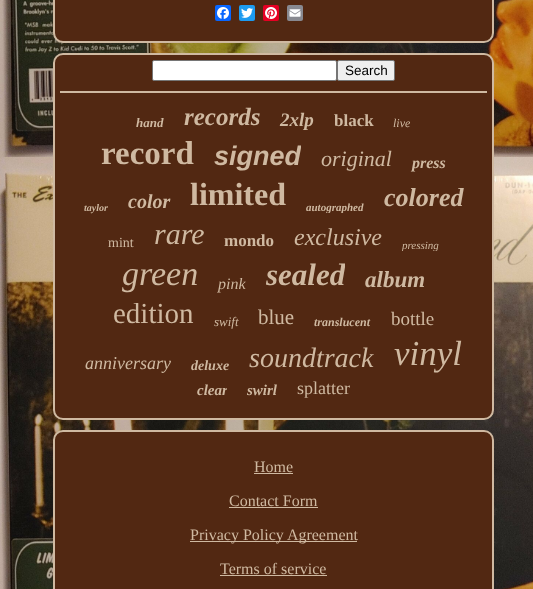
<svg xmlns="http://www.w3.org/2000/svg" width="533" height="589">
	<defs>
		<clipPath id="clip1"><rect x="214" y="141" width="87" height="31" /></clipPath>
		<clipPath id="clip2"><rect x="306" y="201" width="58" height="12" /></clipPath>
		<clipPath id="clip3"><rect x="402" y="239" width="37" height="12" /></clipPath>
		<clipPath id="clip4"><rect x="266" y="257" width="79" height="36" /></clipPath>
		<clipPath id="clip5"><rect x="197" y="382" width="30" height="17" /></clipPath>
		<clipPath id="clip6"><rect x="247" y="382" width="30" height="17" /></clipPath>
		<clipPath id="clip7"><rect x="297" y="378" width="53" height="21" /></clipPath>
	</defs>
	<rect width="100%" height="100%" fill="#FFFFFF" />
	<image x="0" y="0" width="533" height="589" href="assets/img1.png" />
	<rect x="54" y="-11" width="439" height="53" rx="9" fill="#522812" stroke="#CFB9A1" stroke-width="2" />
	<rect x="215" y="5" width="16" height="16" rx="2" fill="#0866FF" />
	<image x="217" y="7" width="12" height="12" href="assets/img2.png" />
	<rect x="239" y="5" width="16" height="16" rx="2" fill="#1D9BF0" />
	<image x="241" y="8" width="12" height="10" href="assets/img3.png" />
	<rect x="263" y="5" width="16" height="16" rx="2" fill="#E60023" />
	<image x="265" y="7" width="12" height="12" href="assets/img4.png" />
	<rect x="287" y="5" width="16" height="16" rx="2" fill="#888990" />
	<image x="289" y="9" width="12" height="8" href="assets/img5.png" />
	<rect x="54" y="54" width="439" height="365" rx="9" fill="#522812" stroke="#CFB9A1" stroke-width="2" />
	<rect x="152.5" y="60.5" width="184" height="20" rx="1.5" fill="#FFFFFF" stroke="#767676" />
	<rect x="337.5" y="60.5" width="57" height="20" rx="1.5" fill="#EFEFEF" stroke="#767676" />
	<text x="345" y="75" font-family="Liberation Sans" font-size="13.5" fill="#000000">Search</text>
	<rect x="60" y="91" width="427" height="2" fill="#CFB9A1" />
	<text x="136" y="127" font-family="Liberation Serif" font-size="13" font-weight="700" font-style="italic" fill="#CFB9A1">hand</text>
	<text x="184" y="125" font-family="Liberation Serif" font-size="25" font-weight="700" font-style="italic" fill="#CFB9A1">records</text>
	<text x="280" y="126" font-family="Liberation Serif" font-size="19" font-weight="700" font-style="italic" fill="#CFB9A1">2xlp</text>
	<text x="334" y="126" font-family="Liberation Serif" font-size="17" font-weight="700" fill="#CFB9A1">black</text>
	<text x="393" y="127" font-family="Liberation Serif" font-size="12" font-style="italic" fill="#CFB9A1">live</text>
	<text x="101" y="164" font-family="Liberation Serif" font-size="33" font-weight="700" fill="#CFB9A1">record</text>
	<g clip-path="url(#clip1)">
		<text x="214" y="165" font-family="Liberation Sans" font-size="27" font-weight="700" font-style="italic" fill="#CFB9A1">signed</text>
	</g>
	<text x="321" y="166" font-family="Liberation Serif" font-size="22" font-style="italic" fill="#CFB9A1">original</text>
	<text x="412" y="168" font-family="Liberation Serif" font-size="16" font-weight="700" font-style="italic" fill="#CFB9A1">press</text>
	<text x="84" y="211" font-family="Liberation Serif" font-size="10" font-weight="700" font-style="italic" fill="#CFB9A1">taylor</text>
	<text x="128" y="208" font-family="Liberation Serif" font-size="20" font-weight="700" font-style="italic" fill="#CFB9A1">color</text>
	<text x="190" y="205" font-family="Liberation Serif" font-size="32" font-weight="700" fill="#CFB9A1">limited</text>
	<g clip-path="url(#clip2)">
		<text x="306" y="211" font-family="Liberation Serif" font-size="11" font-weight="700" font-style="italic" fill="#CFB9A1">autographed</text>
	</g>
	<text x="384" y="206" font-family="Liberation Serif" font-size="26" font-weight="700" font-style="italic" fill="#CFB9A1">colored</text>
	<text x="108" y="247" font-family="Liberation Serif" font-size="14" fill="#CFB9A1">mint</text>
	<text x="154" y="244" font-family="Liberation Serif" font-size="30" font-style="italic" fill="#CFB9A1">rare</text>
	<text x="224" y="246" font-family="Liberation Serif" font-size="17" font-weight="700" fill="#CFB9A1">mondo</text>
	<text x="294" y="245" font-family="Liberation Serif" font-size="24" font-style="italic" fill="#CFB9A1">exclusive</text>
	<g clip-path="url(#clip3)">
		<text x="402" y="249" font-family="Liberation Serif" font-size="11" font-style="italic" fill="#CFB9A1">pressing</text>
	</g>
	<text x="122" y="285" font-family="Liberation Serif" font-size="34" font-style="italic" fill="#CFB9A1">green</text>
	<text x="218" y="289" font-family="Liberation Serif" font-size="16" font-style="italic" fill="#CFB9A1">pink</text>
	<g clip-path="url(#clip4)">
		<text x="266" y="285" font-family="Liberation Serif" font-size="31" font-weight="700" font-style="italic" fill="#CFB9A1">sealed</text>
	</g>
	<text x="365" y="287" font-family="Liberation Serif" font-size="23" font-weight="700" font-style="italic" fill="#CFB9A1">album</text>
	<text x="113" y="323" font-family="Liberation Serif" font-size="29" fill="#CFB9A1">edition</text>
	<text x="214" y="326" font-family="Liberation Serif" font-size="13" font-style="italic" fill="#CFB9A1">swift</text>
	<text x="258" y="324" font-family="Liberation Serif" font-size="21" fill="#CFB9A1">blue</text>
	<text x="314" y="326" font-family="Liberation Serif" font-size="12" font-weight="700" font-style="italic" fill="#CFB9A1">translucent</text>
	<text x="391" y="325" font-family="Liberation Serif" font-size="19" fill="#CFB9A1">bottle</text>
	<text x="85" y="369" font-family="Liberation Serif" font-size="18" font-style="italic" fill="#CFB9A1">anniversary</text>
	<text x="191" y="370" font-family="Liberation Serif" font-size="14" font-weight="700" font-style="italic" fill="#CFB9A1">deluxe</text>
	<text x="249" y="367" font-family="Liberation Serif" font-size="28" font-style="italic" fill="#CFB9A1">soundtrack</text>
	<text x="394" y="365" font-family="Liberation Serif" font-size="35" font-style="italic" fill="#CFB9A1">vinyl</text>
	<g clip-path="url(#clip5)">
		<text x="197" y="395" font-family="Liberation Serif" font-size="15" font-weight="700" font-style="italic" fill="#CFB9A1">clear</text>
	</g>
	<g clip-path="url(#clip6)">
		<text x="247" y="395" font-family="Liberation Serif" font-size="15" font-weight="700" font-style="italic" fill="#CFB9A1">swirl</text>
	</g>
	<g clip-path="url(#clip7)">
		<text x="297" y="394" font-family="Liberation Serif" font-size="18" fill="#CFB9A1">splatter</text>
	</g>
	<rect x="54" y="431" width="439" height="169" rx="9" fill="#522812" stroke="#CFB9A1" stroke-width="2" />
	<text x="254" y="472" font-family="Liberation Serif" font-size="16" fill="#CFB9A1">Home</text>
	<rect x="254" y="473" width="39" height="1" fill="#CFB9A1" />
	<text x="229" y="506" font-family="Liberation Serif" font-size="16" fill="#CFB9A1">Contact Form</text>
	<rect x="229" y="507" width="89" height="1" fill="#CFB9A1" />
	<rect x="190" y="541" width="167" height="1" fill="#CFB9A1" />
	<g font-family="Liberation Serif" font-size="16" fill="#CFB9A1">
		<text x="190" y="540">Privacy Policy Agreement</text>
		<text x="220" y="574">Terms of service</text>
	</g>
	<rect x="220" y="575" width="107" height="1" fill="#CFB9A1" />
</svg>
